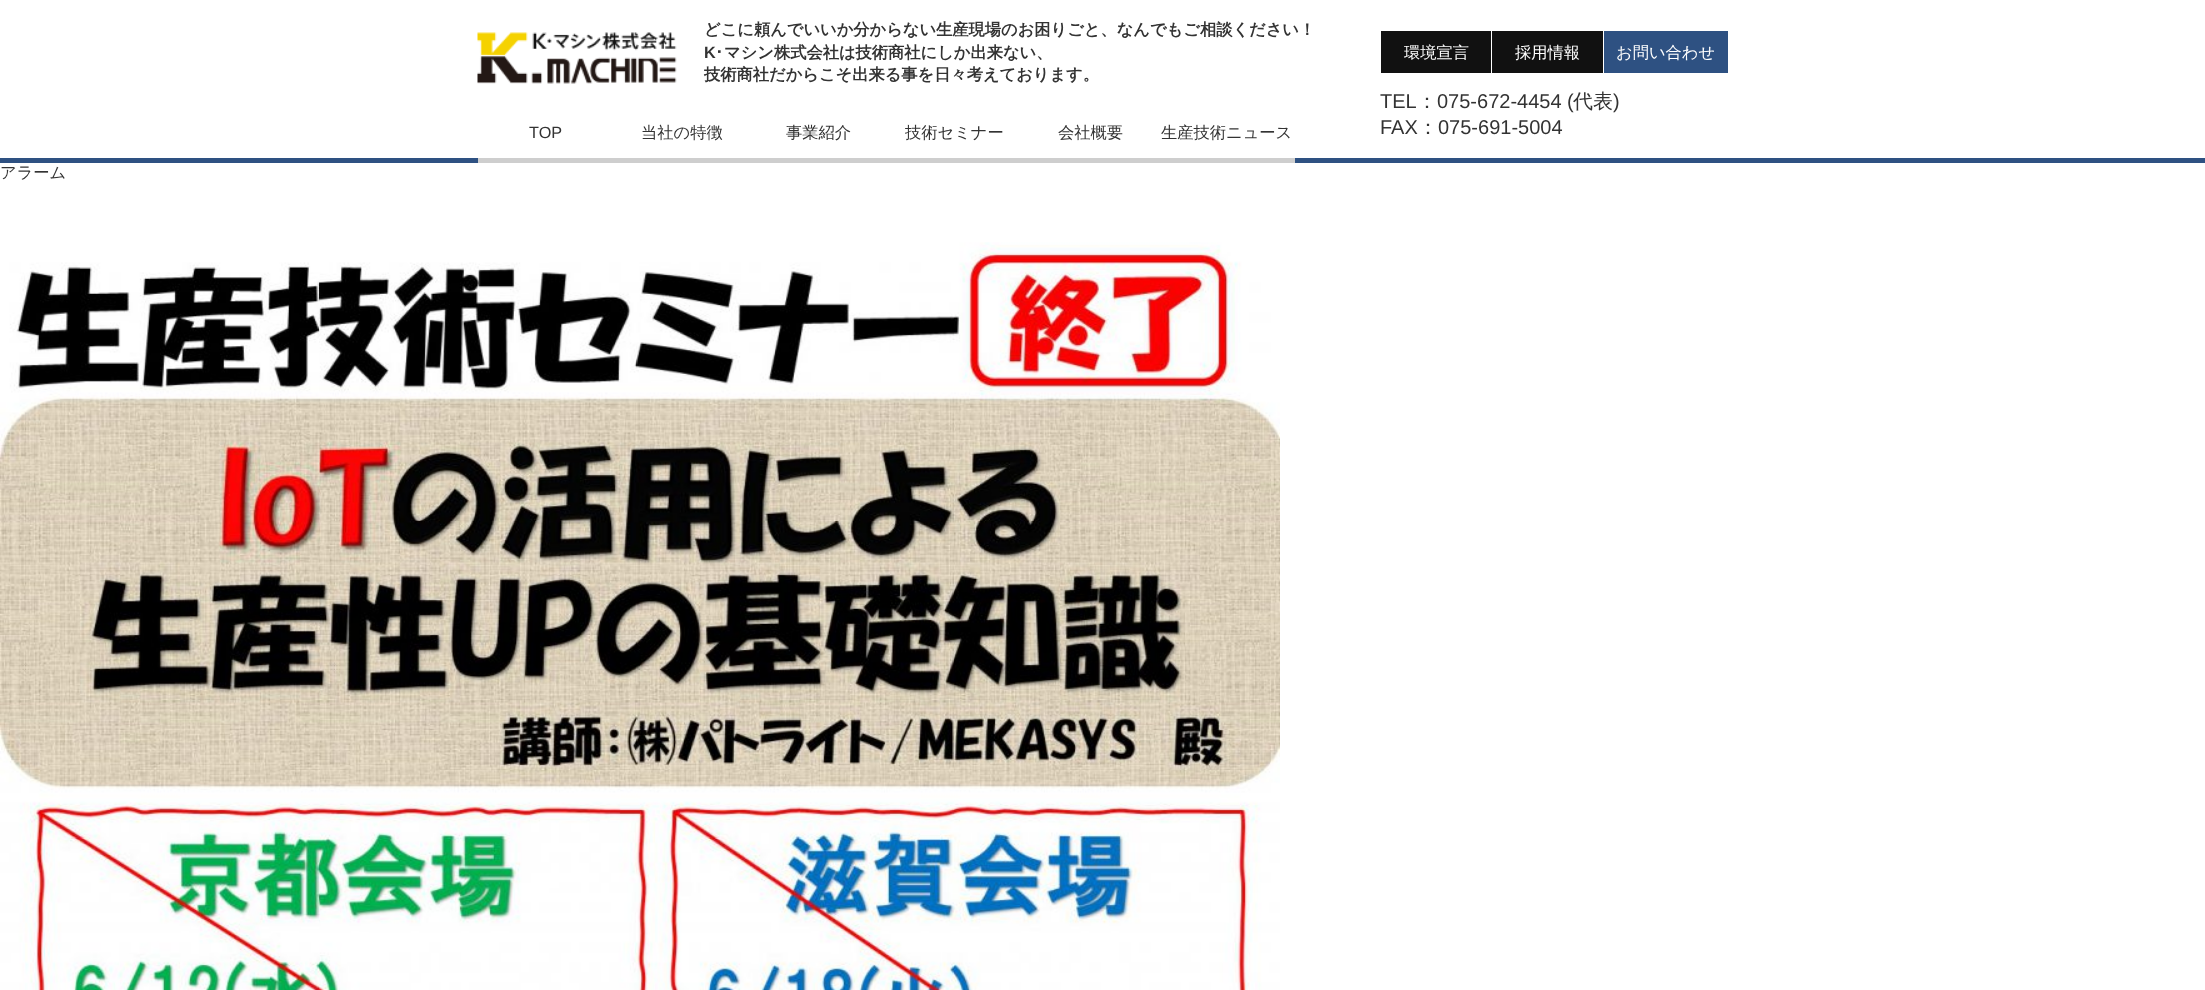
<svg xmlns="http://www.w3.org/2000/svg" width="2205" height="990">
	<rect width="100%" height="100%" fill="#FFFFFF" />
	<rect x="0" y="158" width="2205" height="5" fill="#2E5182" />
	<image x="477" y="32" width="200" height="52" href="assets/img1.png" />
	<text x="704" y="35" font-family="WenQuanYi Zen Hei" font-size="16.25" font-weight="700" fill="#333333">どこに頼んでいいか分からない生産現場のお困りごと、なんでもご相談ください！</text>
	<text x="704" y="58" font-family="Liberation Sans" font-size="16.25" font-weight="700" fill="#333333">K</text>
	<text x="715" y="58" font-family="IPAPGothic" font-size="16.25" font-weight="700" fill="#333333">･</text>
	<g font-family="WenQuanYi Zen Hei" font-size="16.25" font-weight="700" fill="#333333">
		<text x="724" y="58">マシン株式会社は技術商社にしか出来ない、</text>
		<text x="704" y="80">技術商社だからこそ出来る事を日々考えております。</text>
	</g>
	<rect x="1381" y="31" width="110" height="42" fill="#111111" />
	<text x="1404" y="58" font-family="WenQuanYi Zen Hei" font-size="16.25" font-weight="500" fill="#FFFFFF">環境宣言</text>
	<rect x="1492" y="31" width="111" height="42" fill="#111111" />
	<text x="1515" y="58" font-family="WenQuanYi Zen Hei" font-size="16.25" font-weight="500" fill="#FFFFFF">採用情報</text>
	<rect x="1604" y="31" width="124" height="42" fill="#2E5182" />
	<text x="1616" y="58" font-family="WenQuanYi Zen Hei" font-size="16.25" font-weight="500" fill="#FFFFFF">お問い合わせ</text>
	<rect x="478" y="158" width="817" height="5" fill="#CECECE" />
	<text x="529" y="138" font-family="Liberation Sans" font-size="16.25" fill="#333333">TOP</text>
	<g font-family="WenQuanYi Zen Hei" font-size="16.25" font-weight="500" fill="#333333">
		<text x="641" y="138">当社の特徴</text>
		<text x="786" y="138">事業紹介</text>
		<text x="905" y="138">技術セミナー</text>
		<text x="1058" y="138">会社概要</text>
		<text x="1161" y="138">生産技術ニュース</text>
	</g>
	<text x="1380" y="108" font-family="Liberation Sans" font-size="20" fill="#333333">TEL</text>
	<text x="1417" y="108" font-family="WenQuanYi Zen Hei" font-size="20" font-weight="500" fill="#333333">：</text>
	<text x="1437" y="108" font-family="Liberation Sans" font-size="20" fill="#333333">075-672-4454 (</text>
	<text x="1573" y="108" font-family="WenQuanYi Zen Hei" font-size="20" font-weight="500" fill="#333333">代表</text>
	<g font-family="Liberation Sans" font-size="20" fill="#333333">
		<text x="1613" y="108">)</text>
		<text x="1380" y="134">FAX</text>
	</g>
	<text x="1418" y="134" font-family="WenQuanYi Zen Hei" font-size="20" font-weight="500" fill="#333333">：</text>
	<text x="1438" y="134" font-family="Liberation Sans" font-size="20" fill="#333333">075-691-5004</text>
	<text x="0" y="178" font-family="WenQuanYi Zen Hei" font-size="16.25" font-weight="500" fill="#333333">アラーム</text>
	<image x="0" y="242" width="1280" height="748" href="assets/img2.png" />
</svg>
